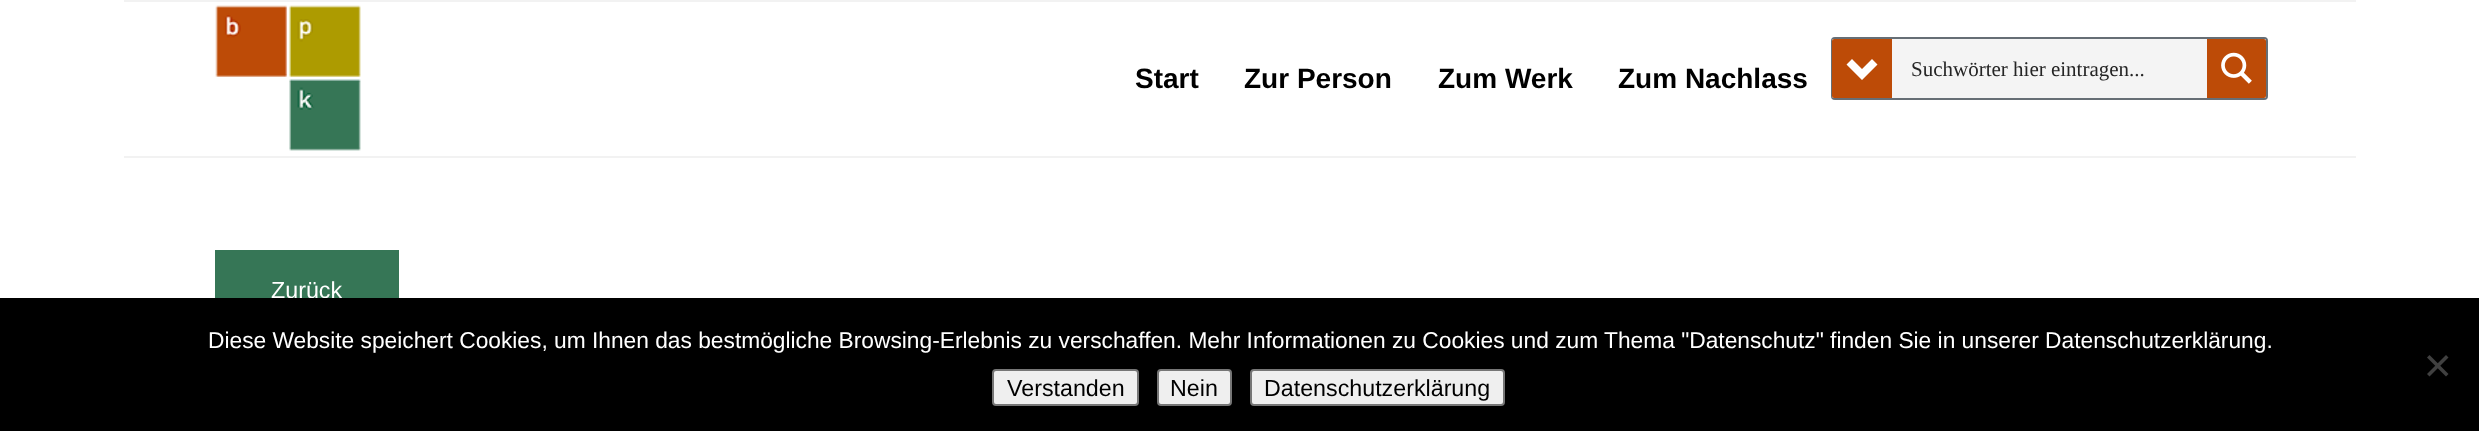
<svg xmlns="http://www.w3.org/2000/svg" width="2479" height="431">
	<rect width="100%" height="100%" fill="#FFFFFF" />
	<rect x="124" y="0" width="2232" height="2" fill="#F2F2F2" />
	<rect x="124" y="156" width="2232" height="2" fill="#F2F2F2" />
	<image x="215" y="5" width="146" height="146" href="assets/img1.png" />
	<g font-family="Liberation Sans" font-size="28" font-weight="700" fill="#000000">
		<text x="1135" y="88">Start</text>
		<text x="1244" y="88">Zur Person</text>
		<text x="1438" y="88">Zum Werk</text>
		<text x="1618" y="88">Zum Nachlass</text>
	</g>
	<rect x="1831" y="37" width="437" height="63" rx="4" fill="#D1EAFF" />
	<rect x="1831" y="37" width="437" height="63" rx="4" fill="#B1B1B1" fill-opacity="0.38" />
	<rect x="1832" y="38" width="435" height="61" rx="3" fill="none" stroke="#000000" stroke-opacity="0.48" stroke-width="2" />
	<rect x="1832" y="39" width="434" height="59" rx="2" fill="#FFFFFF" />
	<rect x="1832" y="39" width="434" height="59" rx="2" fill="#838687" fill-opacity="0.09" />
	<path d="M1834 39H1892V98H1834C1833 98 1832 97 1832 96V41C1832 40 1833 39 1834 39Z" fill="#BD4B07" />
	<path d="M1846.5 64.5L1852 59L1862 69L1872 59L1877.5 64.5L1862 80Z" fill="#FFFFFF" />
	<text x="1911" y="76" font-family="Liberation Serif" font-size="21" fill="#252525">Suchwörter hier eintragen...</text>
	<path d="M2207 39H2264C2265 39 2266 40 2266 41V96C2266 97 2265 98 2264 98H2207Z" fill="#BD4B07" />
	<image x="2221" y="52" width="31" height="32" href="assets/img2.png" />
	<rect x="215" y="250" width="184" height="48" fill="#367656" />
	<text x="271" y="298" font-family="Liberation Sans" font-size="23.25" fill="#FFFFFF">Zurück</text>
	<rect x="0" y="298" width="2479" height="133" fill="#000000" />
	<text x="208" y="348" font-family="Liberation Sans" font-size="22.75" fill="#FFFFFF">Diese Website speichert Cookies, um Ihnen das bestmögliche Browsing-Erlebnis zu verschaffen. Mehr Informationen zu Cookies und zum Thema "Datenschutz" finden Sie in unserer Datenschutzerklärung.</text>
	<path d="M2446 355L2448.5 357.5L2429.5 376.5L2427 374Z" fill="#404040" />
	<path d="M2427 357.5L2429.5 355L2448.5 374L2446 376.5Z" fill="#404040" />
	<rect x="993" y="370" width="145" height="35" rx="3" fill="#EFEFEF" stroke="#767676" stroke-width="2" />
	<text x="1007" y="396" font-family="Liberation Sans" font-size="23.25" fill="#000000">Verstanden</text>
	<rect x="1158" y="370" width="73" height="35" rx="3" fill="#EFEFEF" stroke="#767676" stroke-width="2" />
	<text x="1170" y="396" font-family="Liberation Sans" font-size="23.25" fill="#000000">Nein</text>
	<rect x="1251" y="370" width="253" height="35" rx="3" fill="#EFEFEF" stroke="#767676" stroke-width="2" />
	<text x="1264" y="396" font-family="Liberation Sans" font-size="23.25" fill="#000000">Datenschutzerklärung</text>
</svg>
